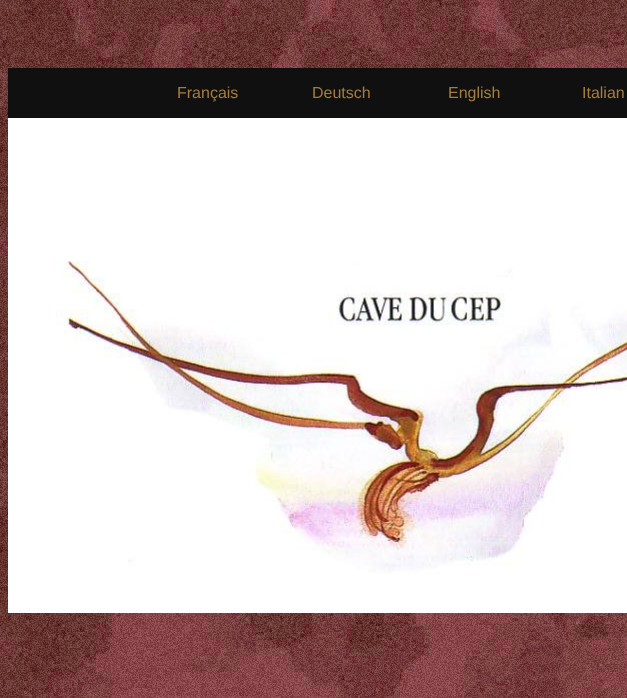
<svg xmlns="http://www.w3.org/2000/svg" width="627" height="698">
	<rect width="100%" height="100%" fill="#FFFFFF" />
	<image x="0" y="0" width="627" height="698" href="assets/img1.png" />
	<rect x="8" y="118" width="619" height="495" fill="#FFFFFF" />
	<rect x="8" y="68" width="619" height="50" fill="#101010" />
	<g font-family="Liberation Sans" font-size="16" fill="#A67D3D">
		<text x="177" y="98">Français</text>
		<text x="312" y="98">Deutsch</text>
		<text x="448" y="98">English</text>
		<text x="582" y="98">Italian</text>
	</g>
	<image x="56" y="260" width="571" height="314" href="assets/img2.png" />
</svg>
